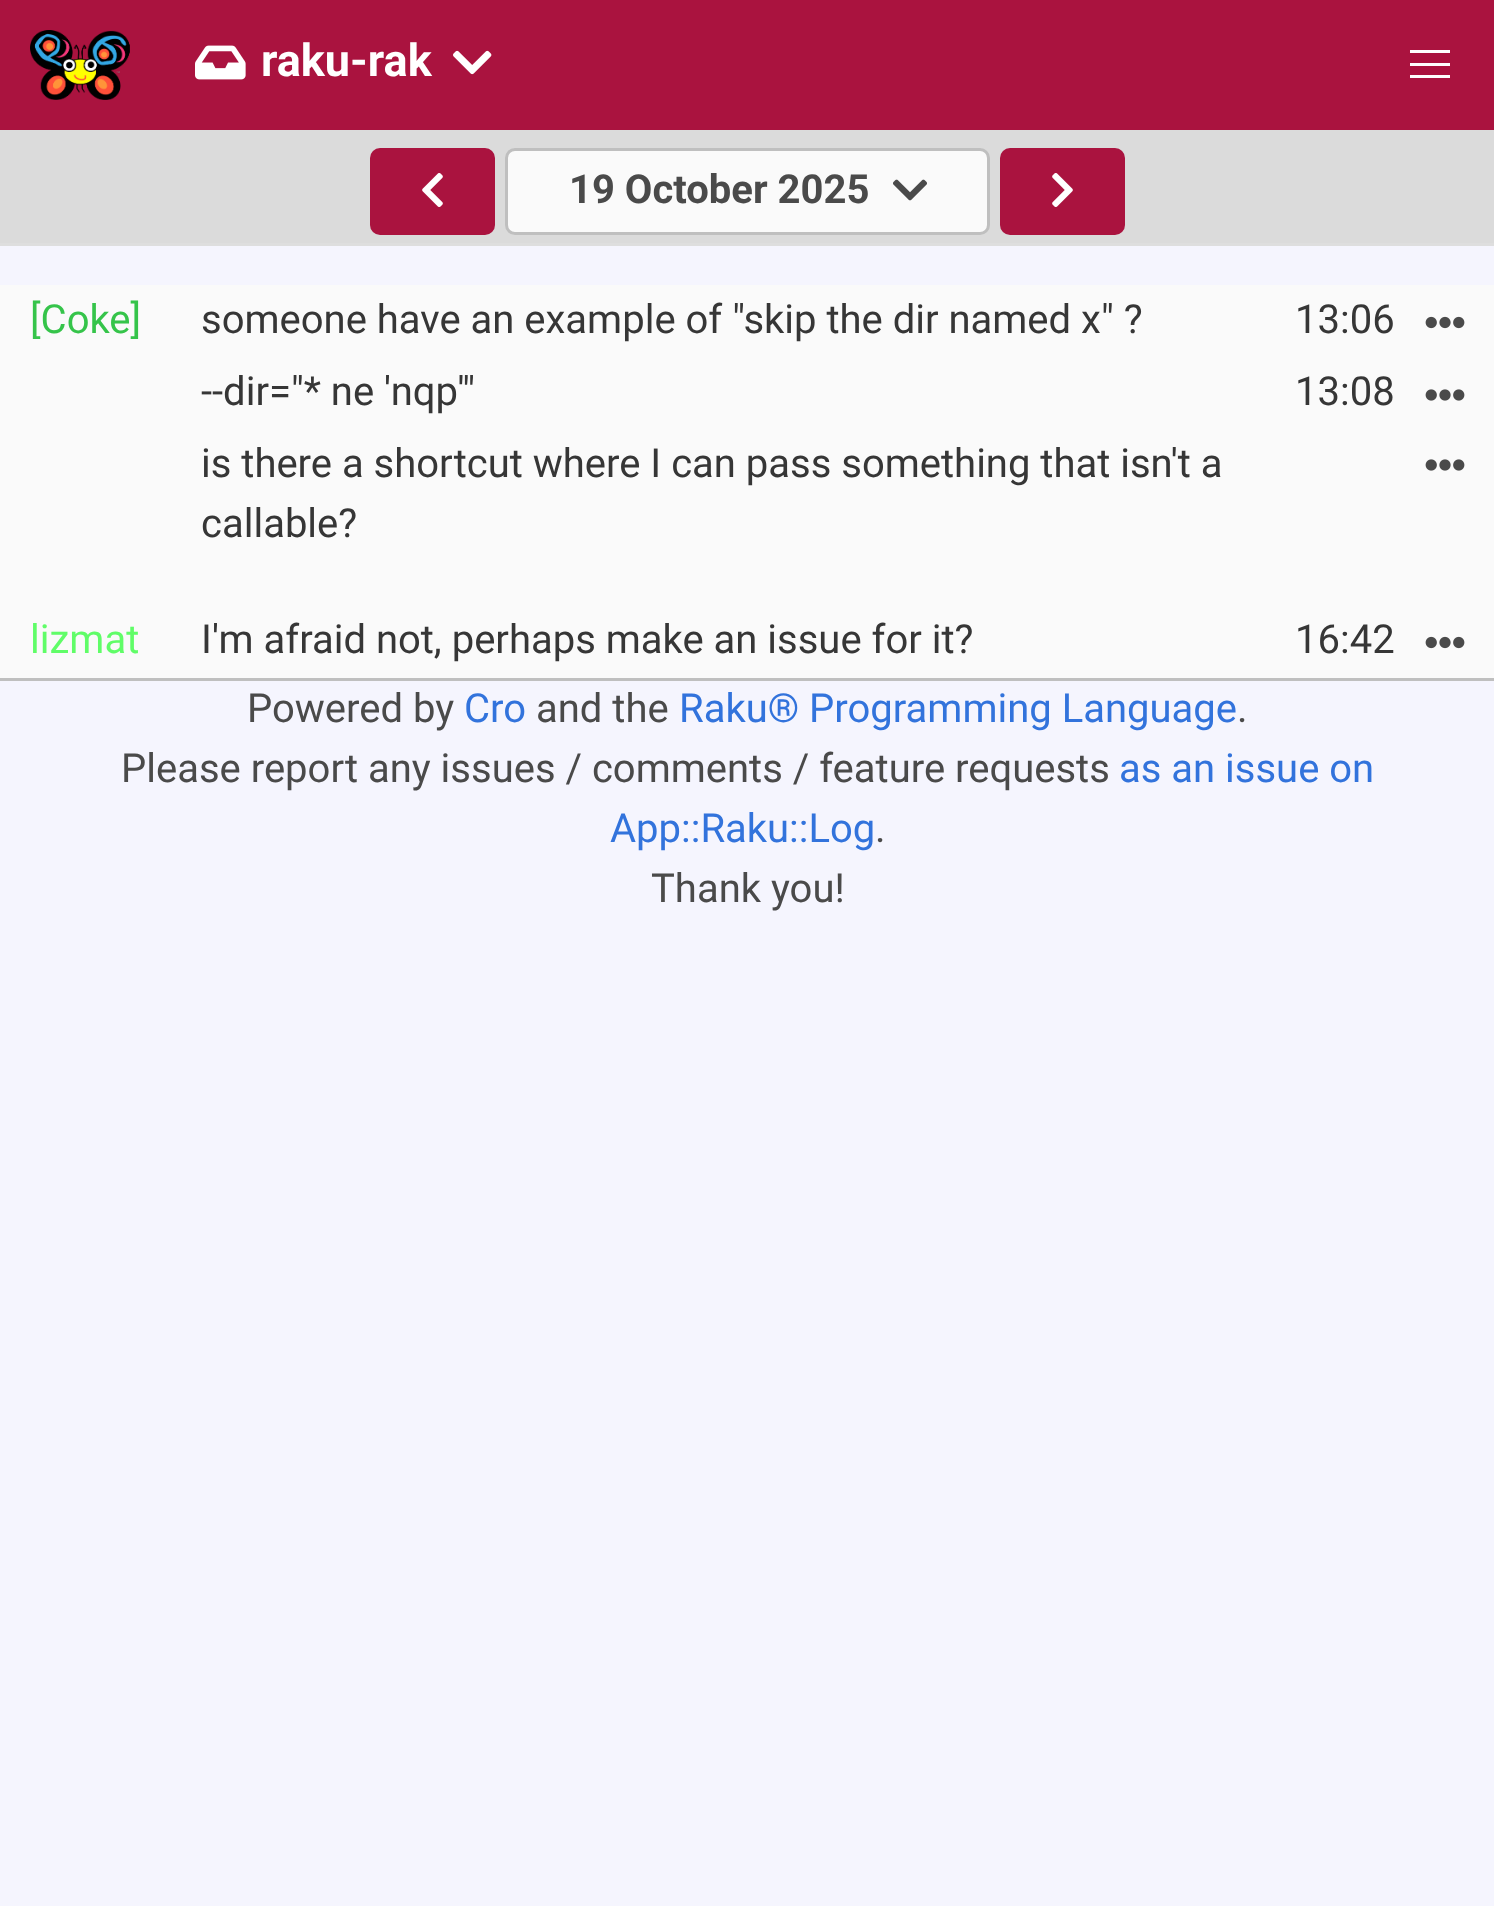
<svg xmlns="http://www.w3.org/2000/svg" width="1494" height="1906">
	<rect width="100%" height="100%" fill="#F5F5FE" />
	<rect x="0" y="0" width="1494" height="130" fill="#AA133F" />
	<image x="30" y="30" width="100" height="70" href="assets/img1.png" />
	<image x="195" y="45" width="51" height="35" href="assets/img2.png" />
	<text x="261" y="76" font-family="Roboto" font-size="45" font-weight="700" fill="#FFFFFF">raku-rak</text>
	<image x="453" y="50" width="39" height="25" href="assets/img3.png" />
	<rect x="1410" y="50" width="40" height="3" fill="#FFFFFF" />
	<rect x="1410" y="63" width="40" height="3" fill="#FFFFFF" />
	<rect x="1410" y="75" width="40" height="3" fill="#FFFFFF" />
	<rect x="0" y="130" width="1494" height="113" fill="#DBDBDB" />
	<rect x="0" y="243" width="1494" height="3" fill="#DEDEDE" />
	<rect x="370" y="148" width="125" height="87" rx="10" fill="#AA133F" />
	<image x="422" y="173" width="21" height="34" href="assets/img4.png" />
	<rect x="506.5" y="149.5" width="482" height="84" rx="8.5" fill="#FAFAFA" stroke="#BFBFBF" stroke-width="3" />
	<text x="569" y="203" font-family="Roboto" font-size="40" font-weight="700" fill="#4A4A4A">19 October 2025</text>
	<image x="893" y="179" width="34" height="22" href="assets/img5.png" />
	<rect x="1000" y="148" width="125" height="87" rx="10" fill="#AA133F" />
	<image x="1052" y="173" width="21" height="34" href="assets/img6.png" />
	<rect x="0" y="285" width="1494" height="393" fill="#FAFAFA" />
	<rect x="0" y="678" width="1494" height="3" fill="#BFBFBF" />
	<text x="30" y="333" font-family="Roboto" font-size="40" fill="#35C44A">[Coke]</text>
	<g font-family="Roboto" font-size="40" fill="#363636">
		<text x="201" y="333">someone have an example of "skip the dir named x" ?</text>
		<text x="1295" y="333">13:06</text>
	</g>
	<image x="1425" y="316" width="40" height="13" href="assets/img7.png" />
	<g font-family="Roboto" font-size="40" fill="#363636">
		<text x="201" y="405">--dir="* ne 'nqp'"</text>
		<text x="1295" y="405">13:08</text>
	</g>
	<image x="1425" y="389" width="40" height="12" href="assets/img8.png" />
	<g font-family="Roboto" font-size="40" fill="#363636">
		<text x="201" y="477">is there a shortcut where I can pass something that isn't a</text>
		<text x="201" y="537">callable?</text>
	</g>
	<image x="1425" y="459" width="40" height="12" href="assets/img8.png" />
	<text x="30" y="653" font-family="Roboto" font-size="40" fill="#60FD68">lizmat</text>
	<g font-family="Roboto" font-size="40" fill="#363636">
		<text x="201" y="653">I'm afraid not, perhaps make an issue for it?</text>
		<text x="1295" y="653">16:42</text>
	</g>
	<image x="1425" y="636" width="40" height="13" href="assets/img7.png" />
	<text x="247" y="722" font-family="Roboto" font-size="40" fill="#4A4A4A">Powered by</text>
	<text x="464" y="722" font-family="Roboto" font-size="40" fill="#3273DC">Cro</text>
	<text x="536" y="722" font-family="Roboto" font-size="40" fill="#4A4A4A">and the</text>
	<text x="679" y="722" font-family="Roboto" font-size="40" fill="#3273DC">Raku® Programming Language</text>
	<g font-family="Roboto" font-size="40" fill="#4A4A4A">
		<text x="1237" y="722">.</text>
		<text x="121" y="782">Please report any issues / comments / feature requests</text>
	</g>
	<g font-family="Roboto" font-size="40" fill="#3273DC">
		<text x="1119" y="782">as an issue on</text>
		<text x="610" y="842">App::Raku::Log</text>
	</g>
	<g font-family="Roboto" font-size="40" fill="#4A4A4A">
		<text x="875" y="842">.</text>
		<text x="651" y="902">Thank you!</text>
	</g>
</svg>
